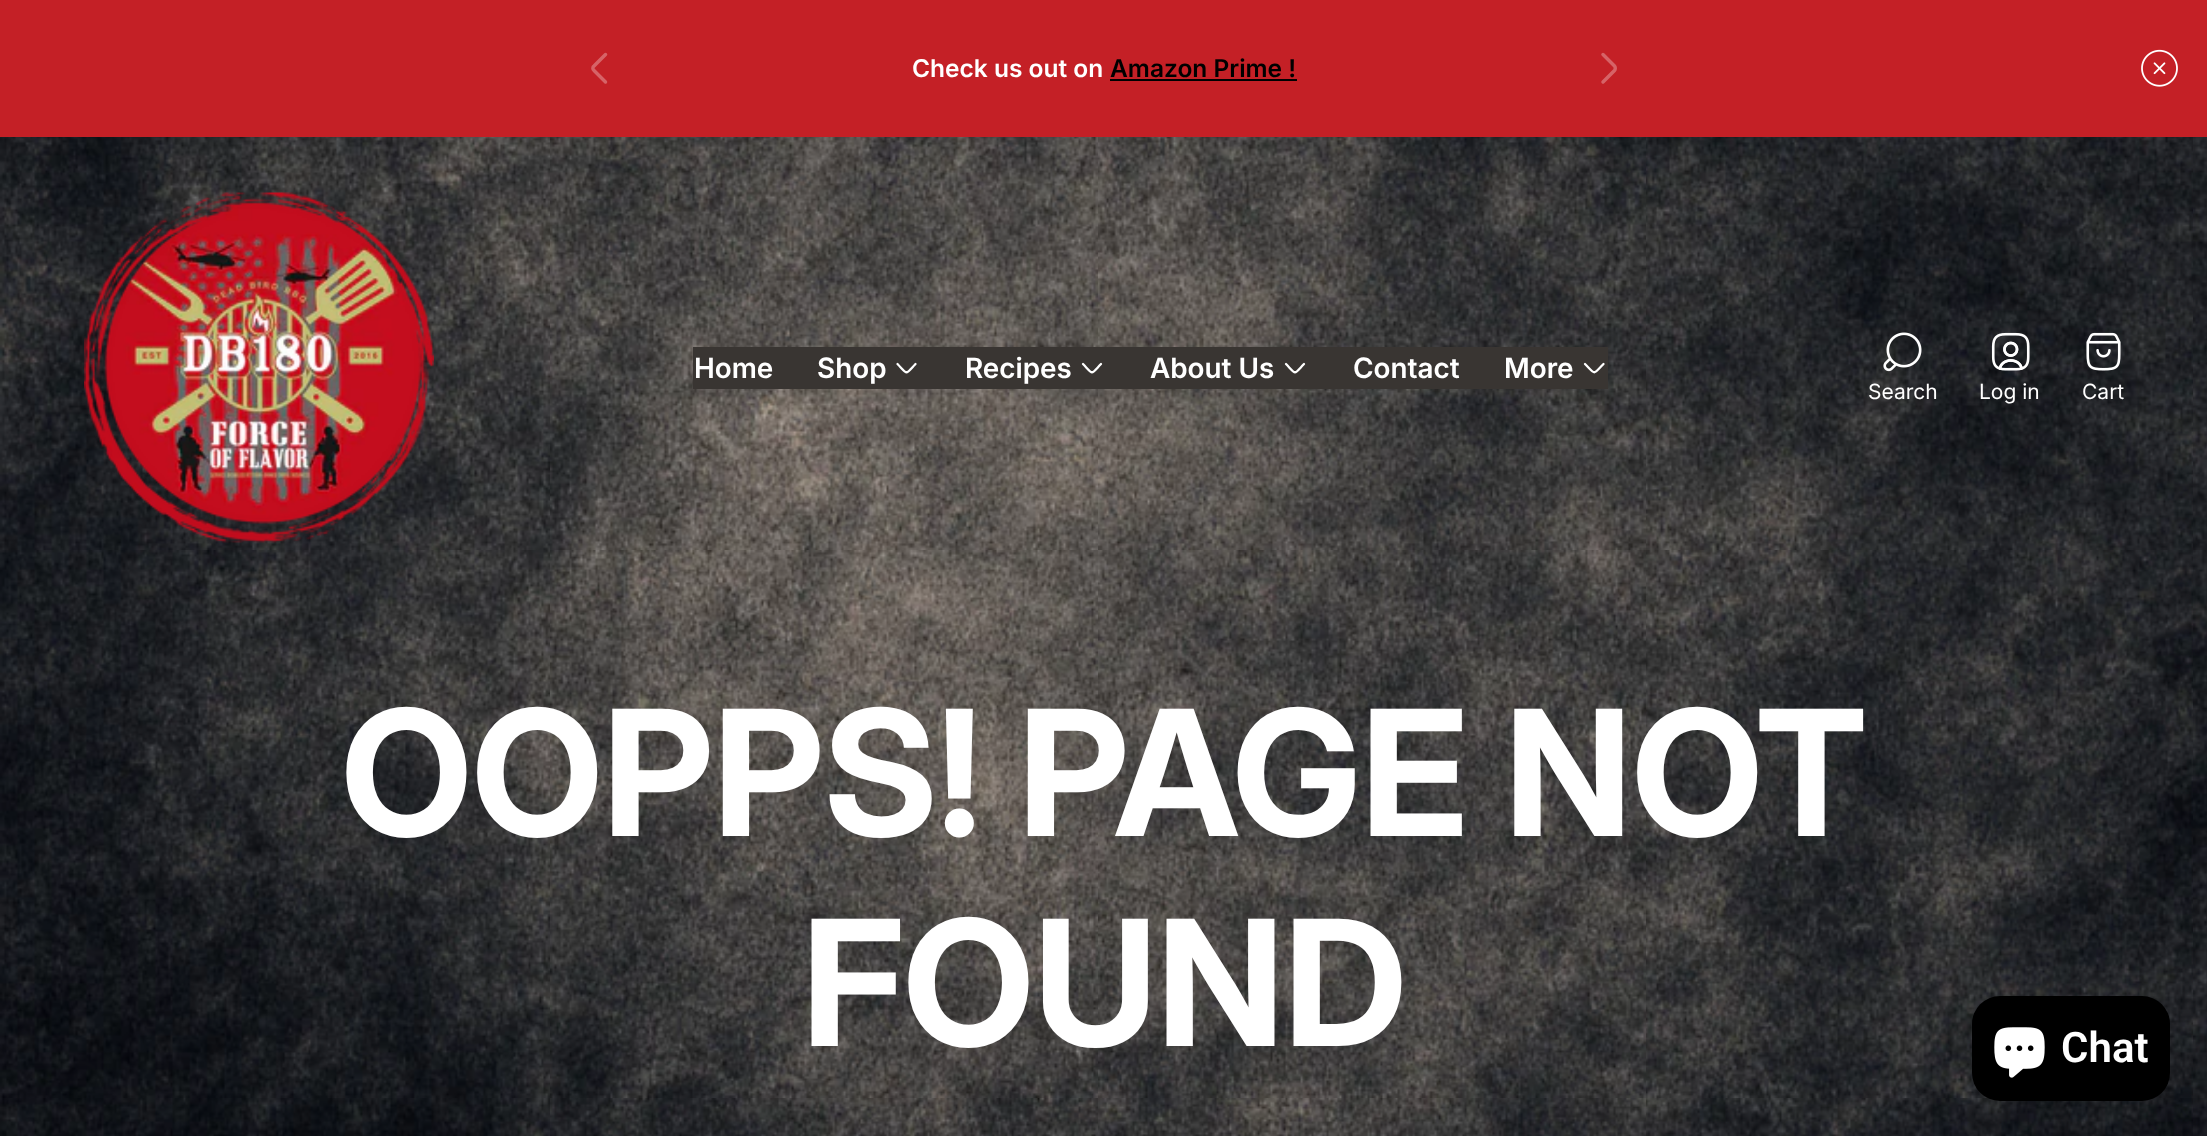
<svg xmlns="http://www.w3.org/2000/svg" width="2207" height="1136">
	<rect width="100%" height="100%" fill="#FFFFFF" />
	<image x="0" y="137" width="2207" height="999" href="assets/img1.png" />
	<rect x="0" y="0" width="2207" height="137" fill="#C42026" />
	<path d="M605.5 82L594 70.5C592.5 69.5 592.5 67 594 66L605.5 54.5" fill="none" stroke="#D66367" stroke-width="3.5" stroke-linecap="round" stroke-linejoin="round" />
	<text x="912" y="77" font-family="Inter" font-size="24.5" font-weight="600" fill="#FFFFFF">Check us out on</text>
	<text x="1110" y="77" font-family="Inter" font-size="24.5" font-weight="600" fill="#000000">Amazon Prime !</text>
	<rect x="1110" y="79" width="187" height="2" fill="#000000" />
	<path d="M1603 82L1614.5 70.5C1615.5 69.5 1615.5 67 1614.5 66L1603 54.5" fill="none" stroke="#D66367" stroke-width="3.5" stroke-linecap="round" stroke-linejoin="round" />
	<image x="2141" y="49" width="37" height="38" href="assets/img2.png" />
	<image x="84" y="192" width="350" height="351" href="assets/img3.png" />
	<rect x="693" y="347" width="915" height="42" fill="#393532" />
	<g font-family="'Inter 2'" font-size="28" font-weight="600" fill="#FFFFFF">
		<text x="694" y="378">Home</text>
		<text x="817" y="378">Shop</text>
	</g>
	<path d="M915.5 364C905 375 908 375 897.5 364" fill="none" stroke="#FFFFFF" stroke-width="2.3" stroke-linecap="round" stroke-linejoin="round" />
	<text x="965" y="378" font-family="'Inter 2'" font-size="28" font-weight="600" fill="#FFFFFF">Recipes</text>
	<path d="M1101 364C1090.5 375 1093.5 375 1083 364" fill="none" stroke="#FFFFFF" stroke-width="2.3" stroke-linecap="round" stroke-linejoin="round" />
	<text x="1150" y="378" font-family="'Inter 2'" font-size="28" font-weight="600" fill="#FFFFFF">About Us</text>
	<path d="M1304 364C1293.5 375 1296.5 375 1286 364" fill="none" stroke="#FFFFFF" stroke-width="2.3" stroke-linecap="round" stroke-linejoin="round" />
	<g font-family="'Inter 2'" font-size="28" font-weight="600" fill="#FFFFFF">
		<text x="1353" y="378">Contact</text>
		<text x="1504" y="378">More</text>
	</g>
	<path d="M1603.5 364C1592.5 375 1596 375 1585 364" fill="none" stroke="#FFFFFF" stroke-width="2.3" stroke-linecap="round" stroke-linejoin="round" />
	<image x="1883" y="332" width="39" height="40" href="assets/img4.png" />
	<text x="1868" y="399" font-family="Inter" font-size="21" fill="#FFFFFF">Search</text>
	<image x="1991" y="332" width="39" height="39" href="assets/img5.png" />
	<text x="1979" y="399" font-family="Inter" font-size="21" fill="#FFFFFF">Log in</text>
	<image x="2086" y="332" width="35" height="39" href="assets/img6.png" />
	<text x="2082" y="399" font-family="Inter" font-size="21" fill="#FFFFFF">Cart</text>
	<g font-family="Inter" font-size="175" font-weight="700" fill="#FFFFFF">
		<text x="341" y="836">OOPPS! PAGE NOT</text>
		<text x="802" y="1046">FOUND</text>
	</g>
	<rect x="1972" y="996" width="198" height="105" rx="28" fill="#000000" />
	<image x="1994" y="1027" width="51" height="51" href="assets/img7.png" />
	<text x="2061" y="1062" font-family="Roboto" font-size="42" font-weight="600" fill="#FFFFFF">Chat</text>
</svg>
